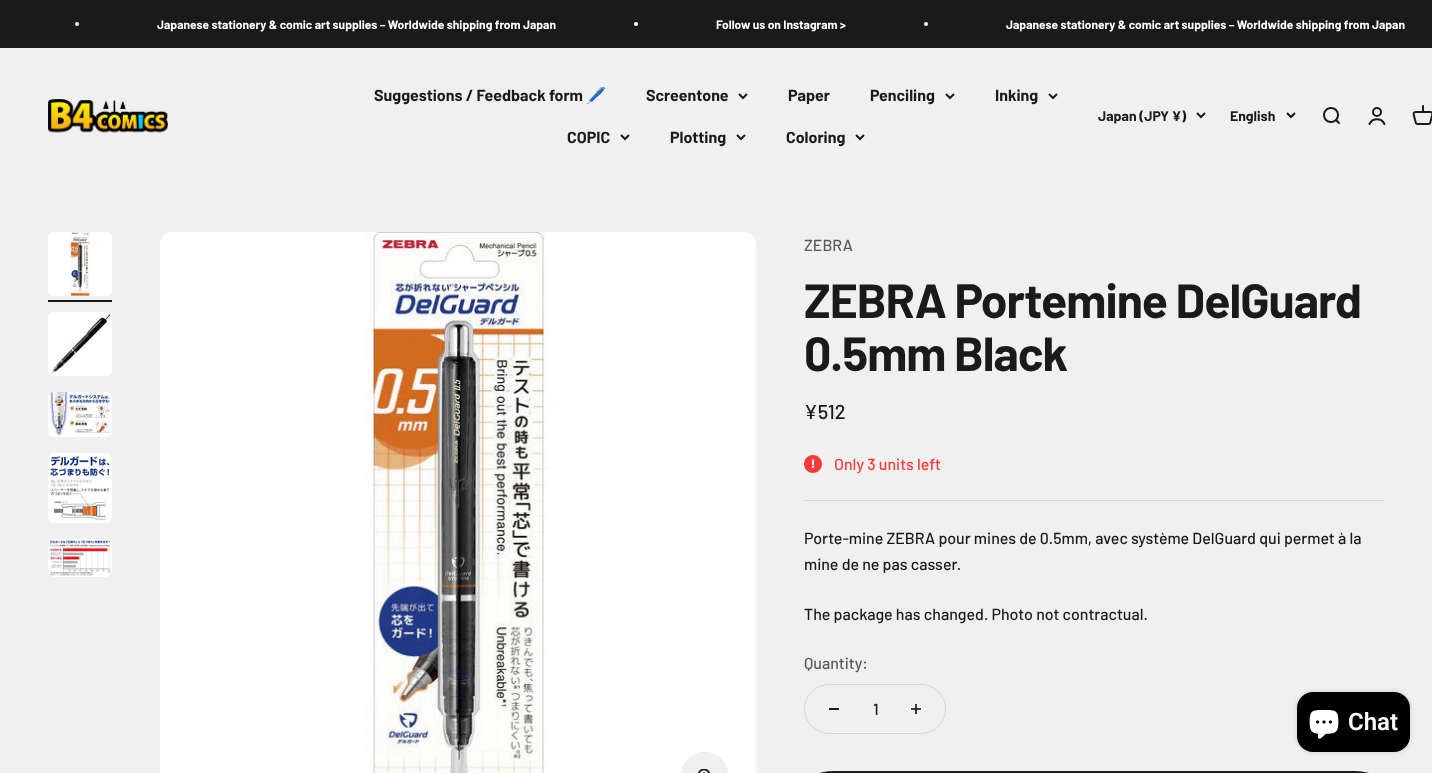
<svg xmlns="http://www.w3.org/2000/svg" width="1432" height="773">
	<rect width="100%" height="100%" fill="#F0F0F0" />
	<rect x="911" y="708" width="10" height="2" fill="#3A3A3A" />
	<rect x="0" y="0" width="1432" height="48" fill="#1A1A1A" />
	<circle cx="77" cy="24" r="2" fill="#FFFFFF" />
	<text x="157" y="29" font-family="Barlow" font-size="12" font-weight="700" fill="#FFFFFF">Japanese stationery &amp; comic art supplies – Worldwide shipping from Japan</text>
	<circle cx="636" cy="24" r="2" fill="#FFFFFF" />
	<text x="716" y="29" font-family="Barlow" font-size="12" font-weight="700" fill="#FFFFFF">Follow us on Instagram &gt;</text>
	<circle cx="926" cy="24" r="2" fill="#FFFFFF" />
	<text x="1006" y="29" font-family="Barlow" font-size="12" font-weight="700" fill="#FFFFFF">Japanese stationery &amp; comic art supplies – Worldwide shipping from Japan</text>
	<image x="48" y="99" width="120" height="34" href="assets/img1.png" />
	<text x="374" y="101" font-family="Barlow" font-size="16" font-weight="700" fill="#1A1A1A">Suggestions / Feedback form</text>
	<text x="586" y="101" font-family="Noto Color Emoji" font-size="16" font-weight="700" fill="#1A1A1A">🖊️</text>
	<text x="646" y="101" font-family="Barlow" font-size="16" font-weight="700" fill="#1A1A1A">Screentone</text>
	<path d="M739 94L743 98L747 94" fill="none" stroke="#1A1A1A" stroke-width="2" />
	<g font-family="Barlow" font-size="16" font-weight="700" fill="#1A1A1A">
		<text x="788" y="101">Paper</text>
		<text x="870" y="101">Penciling</text>
	</g>
	<path d="M946 94L950 98L954 94" fill="none" stroke="#1A1A1A" stroke-width="2" />
	<text x="995" y="101" font-family="Barlow" font-size="16" font-weight="700" fill="#1A1A1A">Inking</text>
	<path d="M1049 94L1053 98L1057 94" fill="none" stroke="#1A1A1A" stroke-width="2" />
	<text x="567" y="143" font-family="Barlow" font-size="16" font-weight="700" fill="#1A1A1A">COPIC</text>
	<path d="M621 135L625 139L629 135" fill="none" stroke="#1A1A1A" stroke-width="2" />
	<text x="670" y="143" font-family="Barlow" font-size="16" font-weight="700" fill="#1A1A1A">Plotting</text>
	<path d="M737 135L741 139L745 135" fill="none" stroke="#1A1A1A" stroke-width="2" />
	<text x="786" y="143" font-family="Barlow" font-size="16" font-weight="700" fill="#1A1A1A">Coloring</text>
	<path d="M856 135L860 139L864 135" fill="none" stroke="#1A1A1A" stroke-width="2" />
	<text x="1098" y="121" font-family="Barlow" font-size="14" font-weight="700" fill="#1A1A1A">Japan (JPY ¥)</text>
	<path d="M1197 113L1201 117L1205 113" fill="none" stroke="#1A1A1A" stroke-width="2" />
	<text x="1230" y="121" font-family="Barlow" font-size="14" font-weight="700" fill="#1A1A1A">English</text>
	<path d="M1287 113L1291 117L1295 113" fill="none" stroke="#1A1A1A" stroke-width="2" />
	<image x="1323" y="107" width="17" height="17" href="assets/img2.png" />
	<circle cx="1377" cy="112" r="4" fill="none" stroke="#1A1A1A" stroke-width="2" />
	<path d="M1369.5 124C1372.5 117.5 1381.5 117.5 1384.5 124" fill="none" stroke="#1A1A1A" stroke-width="2" stroke-linecap="round" />
	<image x="1412" y="105" width="20" height="20" href="assets/img3.png" />
	<image x="48" y="232" width="64" height="64" href="assets/img4.png" />
	<rect x="48" y="300" width="64" height="2" fill="#1A1A1A" />
	<image x="48" y="312" width="64" height="64" href="assets/img5.png" />
	<image x="48" y="392" width="64" height="45" href="assets/img6.png" />
	<image x="48" y="453" width="64" height="70" href="assets/img7.png" />
	<image x="48" y="539" width="64" height="38" href="assets/img8.png" />
	<image x="160" y="232" width="596" height="541" href="assets/img9.png" />
	<rect x="681.4" y="752.4" width="46.2" height="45.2" rx="23.1" fill="none" stroke="#E4E4E4" stroke-width="0.8" />
	<rect x="682" y="753" width="45" height="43" rx="22.5" fill="#F0F0F0" />
	<image x="698" y="769" width="12" height="4" href="assets/img10.png" />
	<text x="804" y="251" font-family="Barlow" font-size="16" font-weight="500" fill="#5A5A5A">ZEBRA</text>
	<g font-family="Barlow" font-size="48" font-weight="700" letter-spacing="-1" fill="#1A1A1A">
		<text x="804" y="318">ZEBRA Portemine DelGuard</text>
		<text x="804" y="371">0.5mm Black</text>
	</g>
	<text x="804" y="419" font-family="Barlow" font-size="20" font-weight="500" fill="#1A1A1A">¥512</text>
	<image x="804" y="455" width="18" height="18" href="assets/img11.png" />
	<text x="834" y="470" font-family="Barlow" font-size="16" font-weight="500" fill="#F83A3A">Only 3 units left</text>
	<rect x="804" y="500" width="580" height="1" fill="#D6D6D6" />
	<g font-family="Barlow" font-size="16" font-weight="500" fill="#1A1A1A">
		<text x="804" y="544">Porte-mine ZEBRA pour mines de 0.5mm, avec système DelGuard qui permet à la</text>
		<text x="804" y="570">mine de ne pas casser.</text>
		<text x="804" y="620">The package has changed. Photo not contractual.</text>
	</g>
	<text x="804" y="669" font-family="Barlow" font-size="16" font-weight="500" fill="#5A5A5A">Quantity:</text>
	<rect x="804.5" y="684.5" width="141" height="49" rx="24.5" fill="none" stroke="#D6D6D6" />
	<rect x="829" y="708" width="10" height="2" fill="#1A1A1A" />
	<text x="873" y="715" font-family="Barlow" font-size="16" font-weight="500" fill="#1A1A1A">1</text>
	<rect x="915" y="704" width="2" height="10" fill="#3A3A3A" />
	<rect x="915" y="708" width="2" height="2" fill="#1F1F1F" />
	<rect x="804" y="771" width="580" height="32" rx="30" fill="#1A1A1A" />
	<rect x="1297" y="692" width="113" height="60" rx="16" fill="#000000" fill-opacity="0.15" filter="blur(2.5px)" />
	<rect x="1297" y="692" width="113" height="60" rx="16" fill="#000000" />
	<image x="1309" y="710" width="30" height="29" href="assets/img12.png" />
	<text x="1348" y="730" font-family="Roboto" font-size="24" font-weight="600" fill="#FFFFFF">Chat</text>
</svg>
